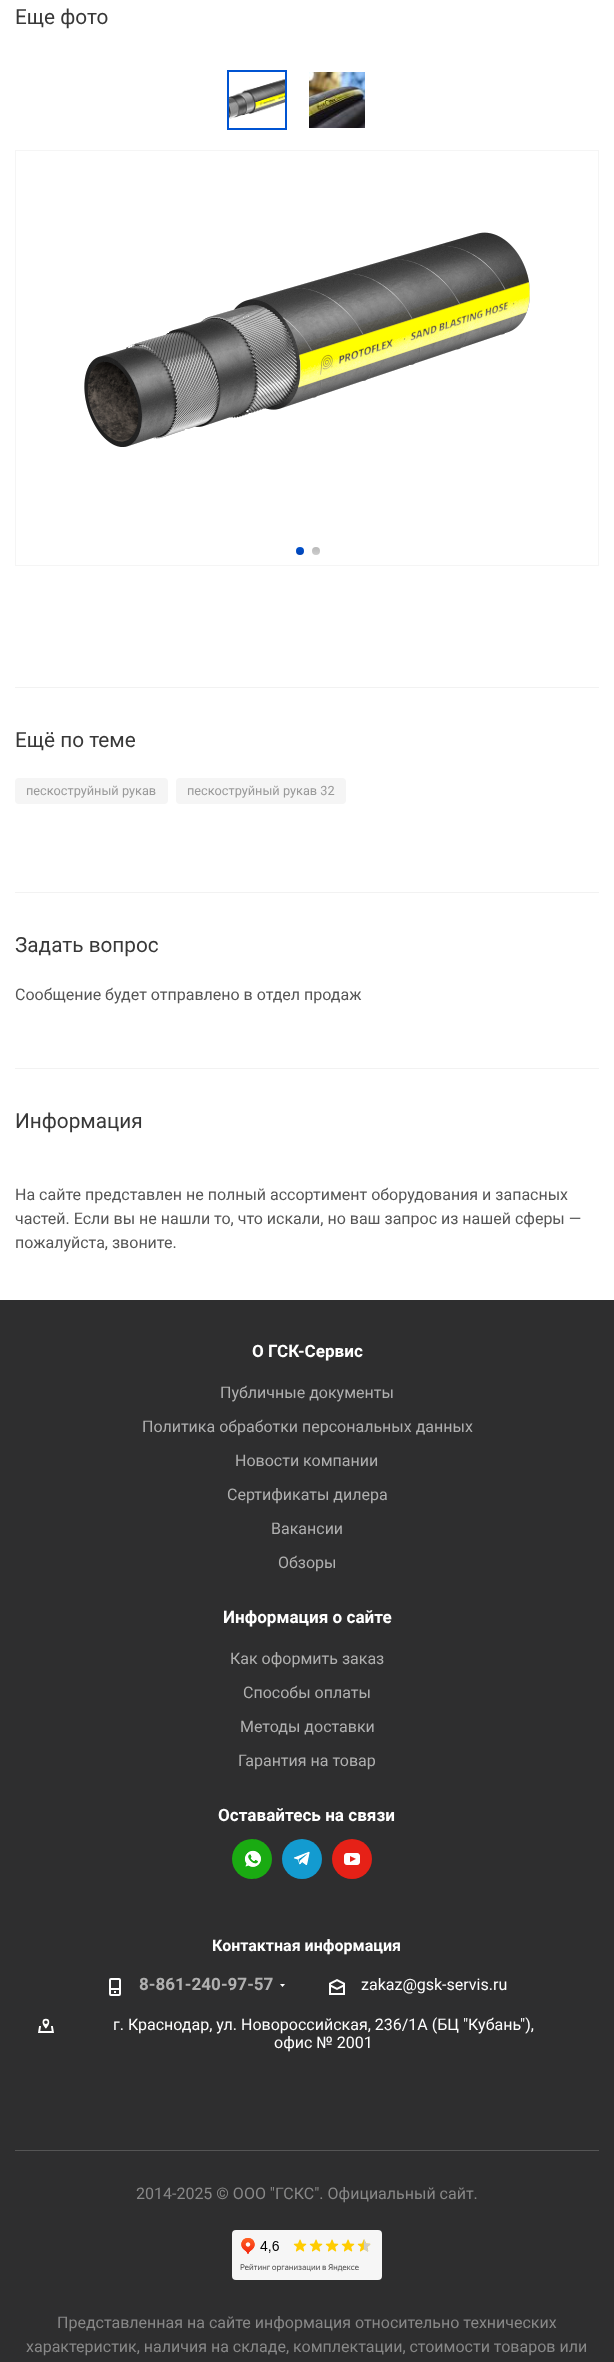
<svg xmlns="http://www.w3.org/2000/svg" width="614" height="2362">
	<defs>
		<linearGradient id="g1" gradientUnits="userSpaceOnUse" x1="300" y1="547" x2="300" y2="555"><stop offset="0" stop-color="#0052CD" /><stop offset="1" stop-color="#0042B3" /></linearGradient>
		<linearGradient id="g2" gradientUnits="userSpaceOnUse" x1="316" y1="547" x2="316" y2="555"><stop offset="0" stop-color="#B9B9B9" /><stop offset="1" stop-color="#CDCDCD" /></linearGradient>
	</defs>
	<rect width="100%" height="100%" fill="#2E2E2F" />
	<rect x="0" y="0" width="614" height="1300" fill="#FFFFFF" />
	<text x="15" y="24" font-family="Roboto" font-size="20.75" fill="#383838">Еще фото</text>
	<rect x="228" y="71" width="58" height="58" fill="none" stroke="#0054D2" stroke-width="2" />
	<image x="229" y="79" width="56" height="40" href="assets/img1.png" />
	<image x="309" y="72" width="56" height="56" href="assets/img2.png" />
	<rect x="15.5" y="150.5" width="583" height="415" fill="none" stroke="#F5F5F5" />
	<image x="84" y="232" width="446" height="215" href="assets/img3.png" />
	<circle cx="300" cy="551" r="4" fill="url(#g1)" />
	<circle cx="316" cy="551" r="4" fill="url(#g2)" />
	<rect x="15" y="687" width="584" height="1" fill="#F2F2F2" />
	<text x="15" y="747" font-family="Roboto" font-size="20.75" fill="#383838">Ещё по теме</text>
	<rect x="15" y="778" width="153" height="26" rx="4" fill="#F5F5F5" />
	<text x="26" y="795" font-family="Roboto" font-size="12.75" fill="#999999">пескоструйный рукав</text>
	<rect x="176" y="778" width="170" height="26" rx="4" fill="#F5F5F5" />
	<text x="187" y="795" font-family="Roboto" font-size="12.75" fill="#999999">пескоструйный рукав 32</text>
	<rect x="15" y="892" width="584" height="1" fill="#F2F2F2" />
	<text x="15" y="952" font-family="Roboto" font-size="20.75" fill="#383838">Задать вопрос</text>
	<text x="15" y="1000" font-family="Roboto" font-size="16" fill="#555555">Сообщение будет отправлено в отдел продаж</text>
	<rect x="15" y="1068" width="584" height="1" fill="#F2F2F2" />
	<text x="15" y="1128" font-family="Roboto" font-size="20.75" fill="#383838">Информация</text>
	<g font-family="Roboto" font-size="16" fill="#555555">
		<text x="15" y="1200">На сайте представлен не полный ассортимент оборудования и запасных</text>
		<text x="15" y="1224">частей. Если вы не нашли то, что искали, но ваш запрос из нашей сферы —</text>
		<text x="15" y="1248">пожалуйста, звоните.</text>
	</g>
	<text x="252" y="1357" font-family="Roboto" font-size="17.1" font-weight="700" fill="#FFFFFF">О ГСК-Сервис</text>
	<g font-family="Roboto" font-size="16" fill="#B0B0B0">
		<text x="220" y="1398">Публичные документы</text>
		<text x="142" y="1432">Политика обработки персональных данных</text>
		<text x="235" y="1466">Новости компании</text>
		<text x="227" y="1500">Сертификаты дилера</text>
		<text x="271" y="1534">Вакансии</text>
		<text x="278" y="1568">Обзоры</text>
	</g>
	<text x="223" y="1623" font-family="Roboto" font-size="17.1" font-weight="700" fill="#FFFFFF">Информация о сайте</text>
	<g font-family="Roboto" font-size="16" fill="#B0B0B0">
		<text x="230" y="1664">Как оформить заказ</text>
		<text x="243" y="1698">Способы оплаты</text>
		<text x="240" y="1732">Методы доставки</text>
		<text x="238" y="1766">Гарантия на товар</text>
	</g>
	<text x="218" y="1821" font-family="Roboto" font-size="17.1" font-weight="700" fill="#FFFFFF">Оставайтесь на связи</text>
	<image x="232" y="1839" width="40" height="40" href="assets/img4.png" />
	<image x="282" y="1839" width="40" height="40" href="assets/img5.png" />
	<image x="332" y="1839" width="40" height="40" href="assets/img6.png" />
	<text x="212" y="1951" font-family="Roboto" font-size="16" font-weight="700" fill="#FFFFFF">Контактная информация</text>
	<image x="109" y="1978" width="12" height="18" href="assets/img7.png" />
	<text x="139" y="1990" font-family="Roboto" font-size="17.1" font-weight="700" fill="#B0B0B0">8-861-240-97-57</text>
	<image x="280" y="1984" width="5" height="3" href="assets/img8.png" />
	<image x="329" y="1979" width="16" height="16" href="assets/img9.png" />
	<text x="361" y="1990" font-family="Roboto" font-size="16" fill="#FFFFFF">zakaz@gsk-servis.ru</text>
	<image x="38" y="2018" width="16" height="15" href="assets/img10.png" />
	<g font-family="Roboto" font-size="16" fill="#FFFFFF">
		<text x="113" y="2030">г. Краснодар, ул. Новороссийская, 236/1А (БЦ "Кубань"),</text>
		<text x="274" y="2048">офис № 2001</text>
	</g>
	<rect x="15" y="2150" width="584" height="1" fill="#555555" />
	<text x="136" y="2199" font-family="Roboto" font-size="16" fill="#888888">2014-2025 © ООО "ГСКС". Официальный сайт.</text>
	<image x="232" y="2230" width="150" height="50" href="assets/img11.png" />
	<g font-family="Roboto" font-size="16" fill="#888888">
		<text x="57" y="2328">Представленная на сайте информация относительно технических</text>
		<text x="26" y="2352">характеристик, наличия на складе, комплектации, стоимости товаров или</text>
	</g>
</svg>
